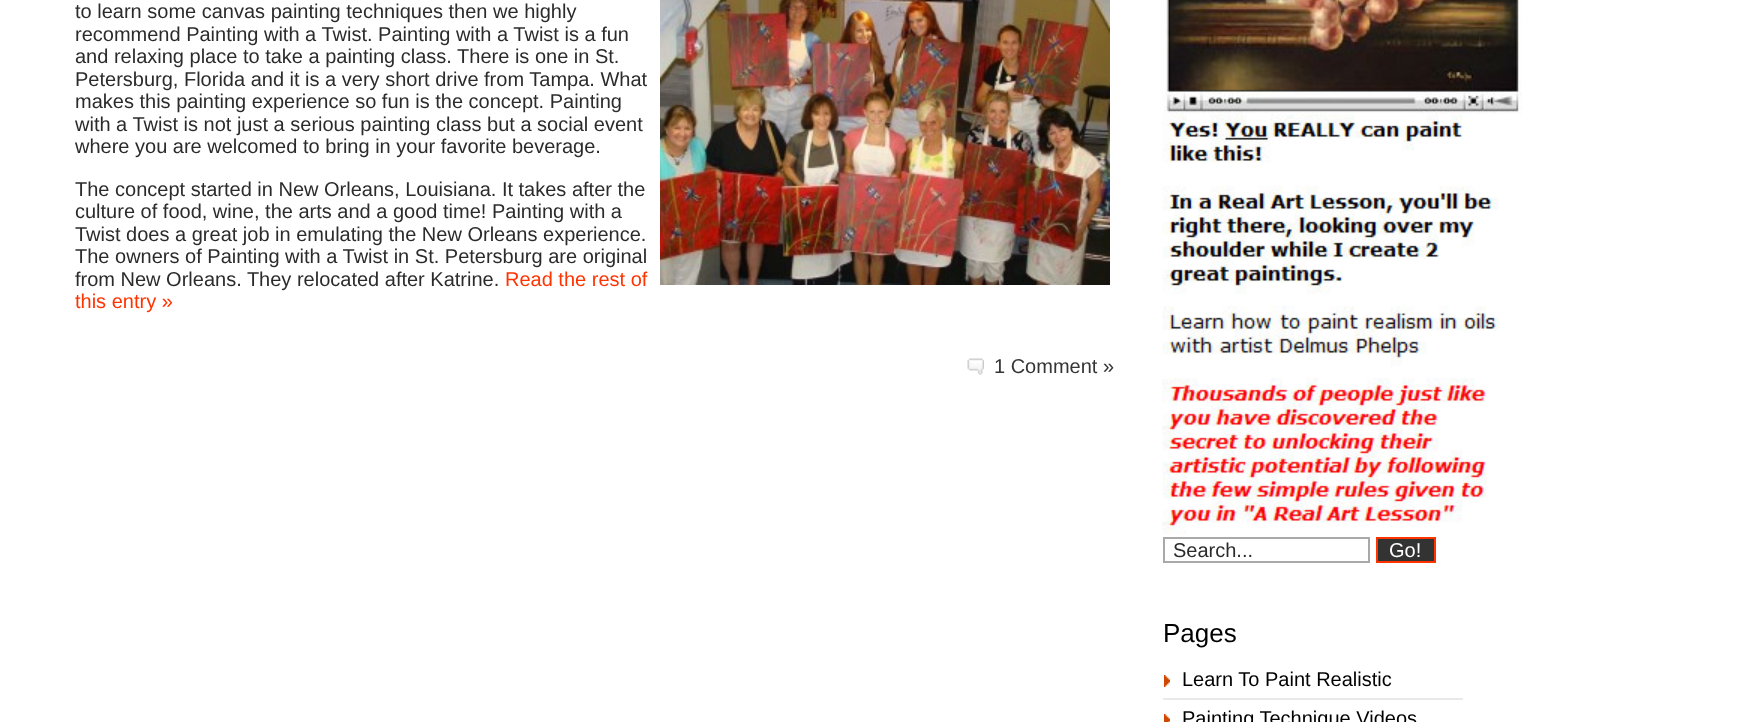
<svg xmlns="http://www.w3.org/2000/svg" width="1758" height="722">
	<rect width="100%" height="100%" fill="#FFFFFF" />
	<text x="75" y="18" font-family="Liberation Sans" font-size="20" fill="#2B2B2B">to learn some canvas painting techniques then we highly</text>
	<image x="660" y="0" width="450" height="285" href="assets/img1.png" />
	<g font-family="Liberation Sans" font-size="20" fill="#2B2B2B">
		<text x="75" y="41">recommend Painting with a Twist. Painting with a Twist is a fun</text>
		<text x="75" y="63">and relaxing place to take a painting class. There is one in St.</text>
		<text x="75" y="86">Petersburg, Florida and it is a very short drive from Tampa. What</text>
		<text x="75" y="108">makes this painting experience so fun is the concept. Painting</text>
		<text x="75" y="131">with a Twist is not just a serious painting class but a social event</text>
		<text x="75" y="153">where you are welcomed to bring in your favorite beverage.</text>
		<text x="75" y="196">The concept started in New Orleans, Louisiana. It takes after the</text>
		<text x="75" y="218">culture of food, wine, the arts and a good time! Painting with a</text>
		<text x="75" y="241">Twist does a great job in emulating the New Orleans experience.</text>
		<text x="75" y="263">The owners of Painting with a Twist in St. Petersburg are original</text>
		<text x="75" y="286">from New Orleans. They relocated after Katrine.</text>
	</g>
	<g font-family="Liberation Sans" font-size="20" fill="#FF3300">
		<text x="505" y="286">Read the rest of</text>
		<text x="75" y="308">this entry »</text>
	</g>
	<image x="967" y="358" width="17" height="17" href="assets/img2.png" />
	<text x="994" y="373" font-family="Liberation Sans" font-size="20" fill="#353535">1 Comment »</text>
	<image x="1162" y="0" width="360" height="534" href="assets/img3.png" />
	<rect x="1164" y="538" width="205" height="24" fill="none" stroke="#A9A9A9" stroke-width="2" />
	<text x="1173" y="557" font-family="Liberation Sans" font-size="20" fill="#2B2B2B">Search...</text>
	<rect x="1377" y="538" width="58" height="24" fill="#333333" stroke="#FF3300" stroke-width="2" />
	<text x="1389" y="557" font-family="Liberation Sans" font-size="20" fill="#FFFFFF">Go!</text>
	<text x="1163" y="642" font-family="Liberation Sans" font-size="26" fill="#000000">Pages</text>
	<image x="1164" y="675" width="6" height="12" href="assets/img4.png" />
	<rect x="1163" y="698" width="300" height="2" fill="#E9E9E9" />
	<text x="1182" y="686" font-family="Liberation Sans" font-size="20" fill="#000000">Learn To Paint Realistic</text>
	<image x="1164" y="714" width="6" height="8" href="assets/img5.png" />
	<text x="1182" y="725" font-family="Liberation Sans" font-size="20" fill="#000000">Painting Technique Videos</text>
</svg>
